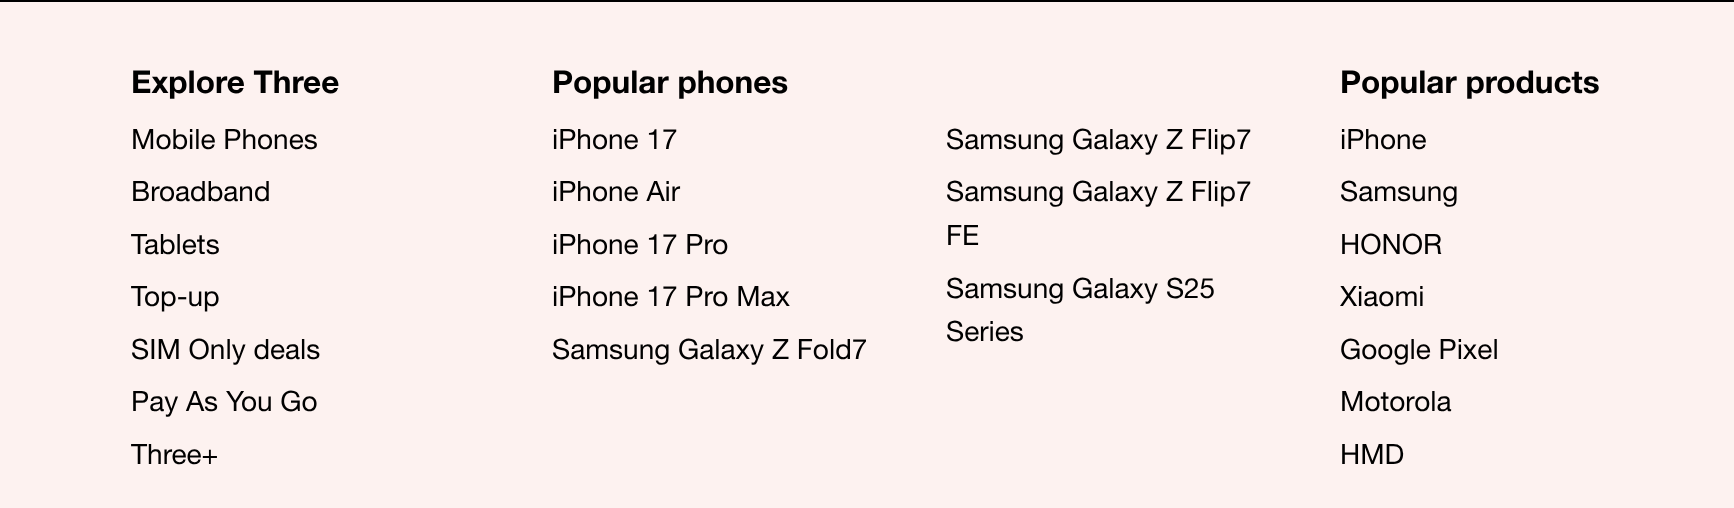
<svg xmlns="http://www.w3.org/2000/svg" width="1734" height="508">
	<rect width="100%" height="100%" fill="#FDF2F0" />
	<rect x="0" y="0" width="1734" height="2" fill="#000000" />
	<text x="131" y="93" font-family="Helvetica Neue" font-size="31.5" font-weight="700" fill="#000000">Explore Three</text>
	<g font-family="Helvetica Neue" font-size="28" fill="#000000">
		<text x="131" y="149">Mobile Phones</text>
		<text x="131" y="201">Broadband</text>
		<text x="131" y="254">Tablets</text>
		<text x="131" y="306">Top-up</text>
		<text x="131" y="359">SIM Only deals</text>
		<text x="131" y="411">Pay As You Go</text>
		<text x="131" y="464">Three+</text>
	</g>
	<text x="552" y="93" font-family="Helvetica Neue" font-size="31.5" font-weight="700" fill="#000000">Popular phones</text>
	<g font-family="Helvetica Neue" font-size="28" fill="#000000">
		<text x="552" y="149">iPhone 17</text>
		<text x="946" y="149">Samsung Galaxy Z Flip7</text>
		<text x="552" y="201">iPhone Air</text>
		<text x="946" y="201">Samsung Galaxy Z Flip7</text>
		<text x="946" y="245">FE</text>
		<text x="552" y="254">iPhone 17 Pro</text>
		<text x="552" y="306">iPhone 17 Pro Max</text>
		<text x="946" y="298">Samsung Galaxy S25</text>
		<text x="946" y="341">Series</text>
		<text x="552" y="359">Samsung Galaxy Z Fold7</text>
	</g>
	<text x="1340" y="93" font-family="Helvetica Neue" font-size="31.5" font-weight="700" fill="#000000">Popular products</text>
	<g font-family="Helvetica Neue" font-size="28" fill="#000000">
		<text x="1340" y="149">iPhone</text>
		<text x="1340" y="201">Samsung</text>
		<text x="1340" y="254">HONOR</text>
		<text x="1340" y="306">Xiaomi</text>
		<text x="1340" y="359">Google Pixel</text>
		<text x="1340" y="411">Motorola</text>
		<text x="1340" y="464">HMD</text>
	</g>
</svg>
